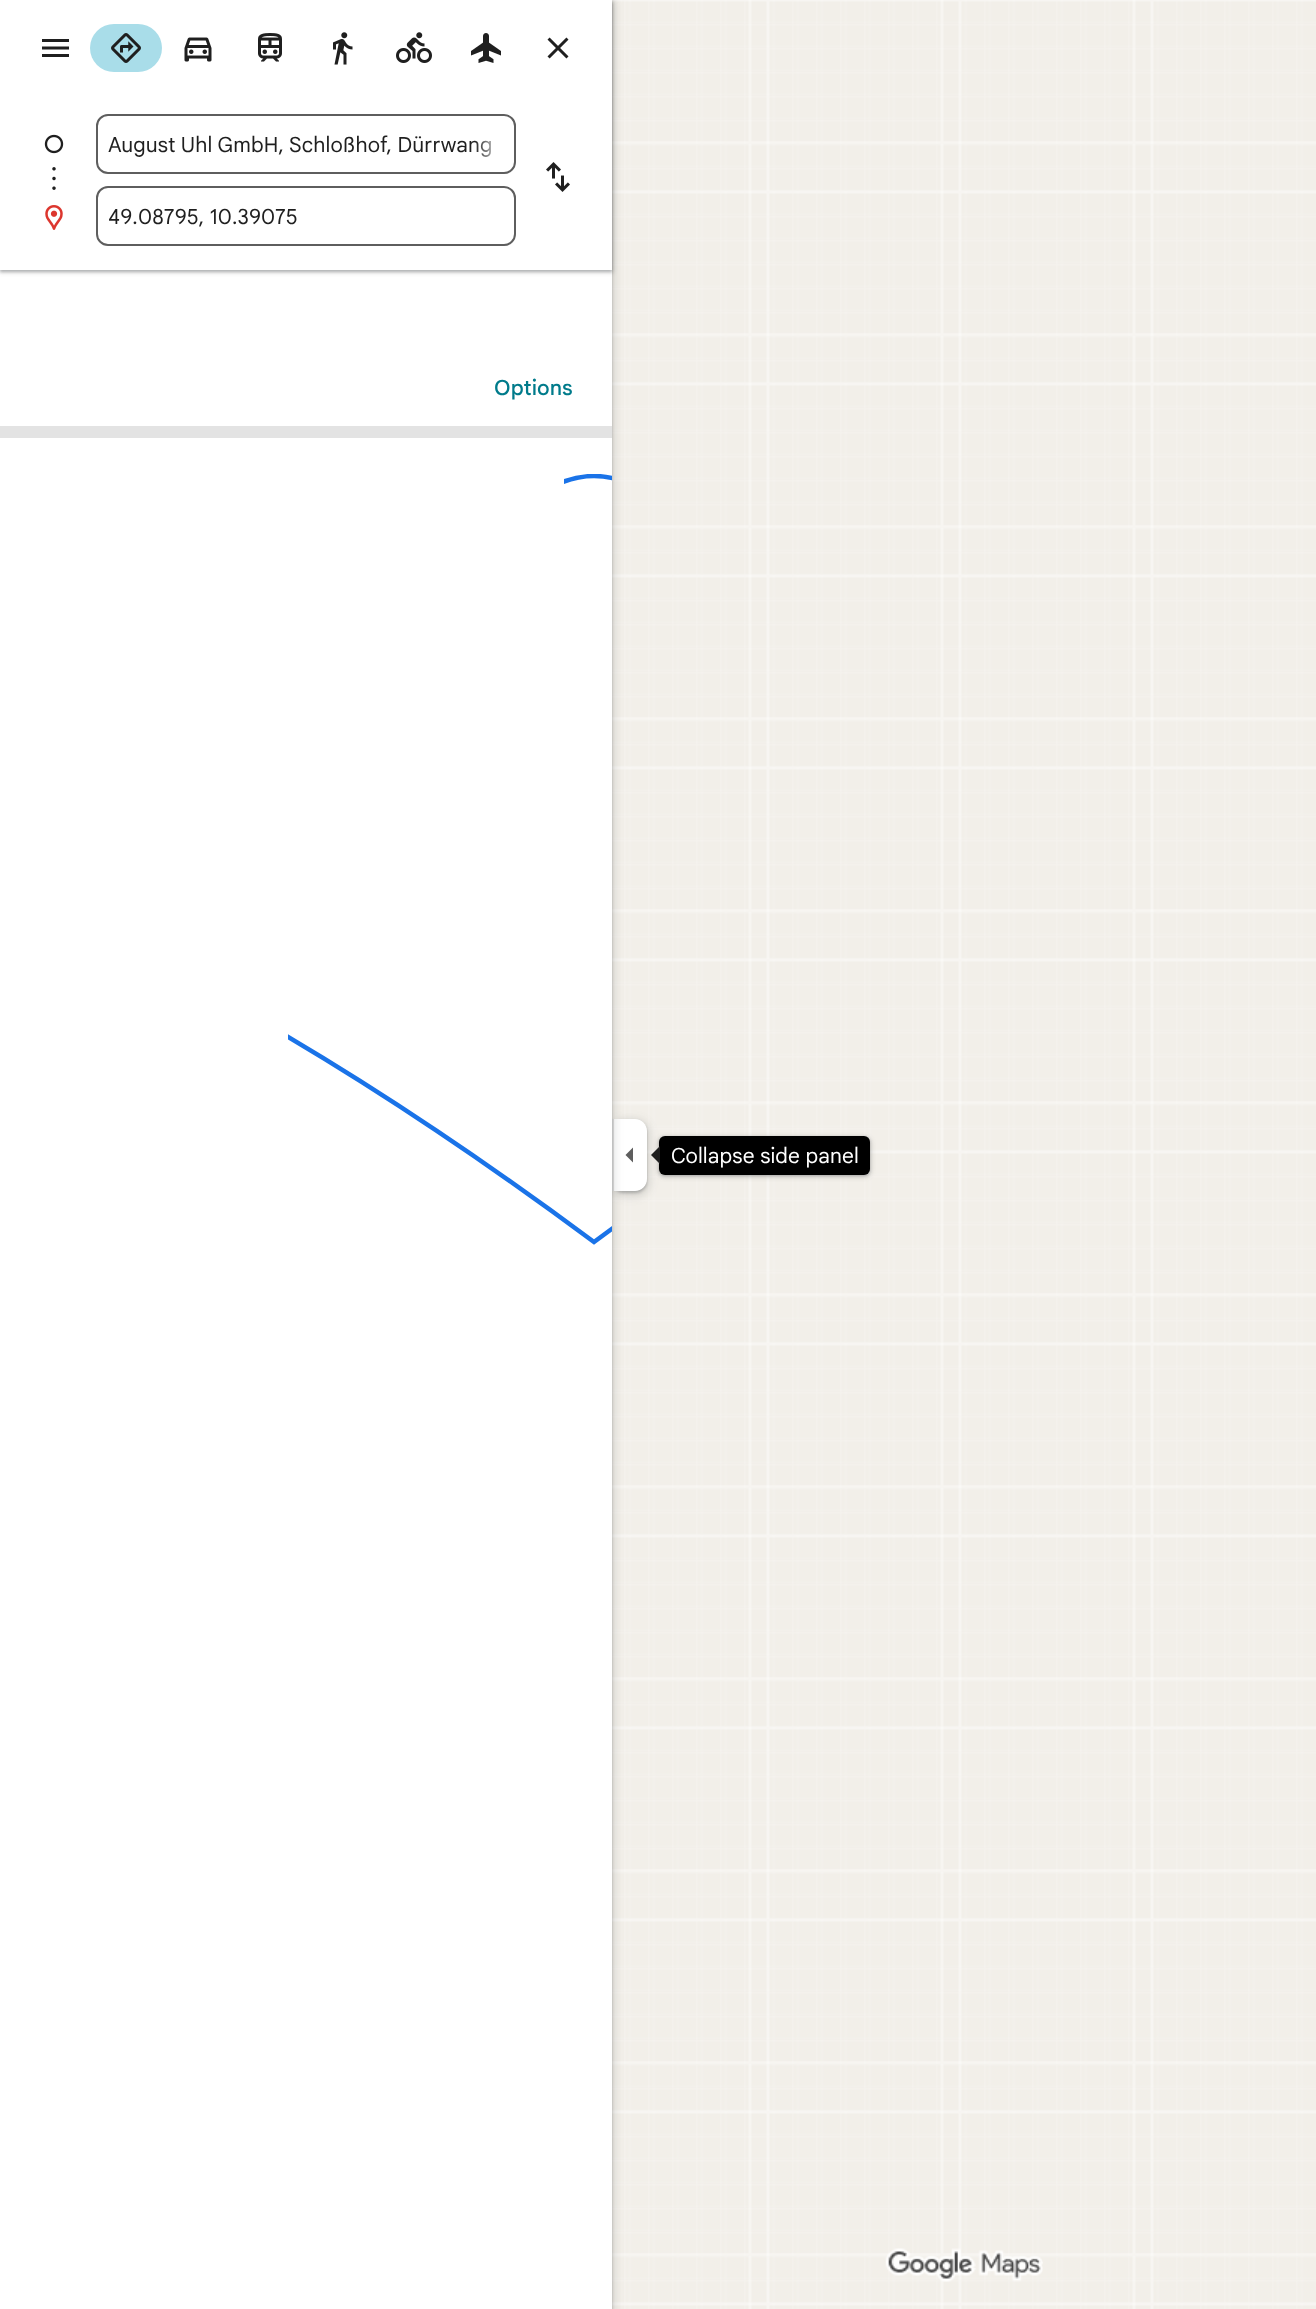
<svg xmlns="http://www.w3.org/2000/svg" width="1316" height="2309">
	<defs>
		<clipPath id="clip1"><path d="M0 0H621V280H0ZM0 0H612V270H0Z" clip-rule="evenodd" /></clipPath>
		<clipPath id="clip2"><path d="M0 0H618V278H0ZM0 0H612V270H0Z" clip-rule="evenodd" /></clipPath>
		<linearGradient id="g1" gradientUnits="userSpaceOnUse" x1="474" y1="144" x2="504" y2="144"><stop offset="0" stop-color="#FFFFFF" stop-opacity="0" /><stop offset="1" stop-color="#FFFFFF" /></linearGradient>
		<clipPath id="clip3"><rect x="564" y="474" width="48" height="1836" /></clipPath>
		<clipPath id="clip4"><rect x="288" y="474" width="306" height="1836" /></clipPath>
		<clipPath id="clip5"><rect x="594" y="474" width="18" height="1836" /></clipPath>
	</defs>
	<rect width="100%" height="100%" fill="#FFFFFF" />
	<image x="612" y="0" width="704" height="2309" href="assets/img13.png" />
	<image x="612" y="0" width="704" height="2309" href="assets/img14.png" />
	<rect x="609" y="1119" width="41" height="78" rx="15" fill="#3C4043" fill-opacity="0.15" filter="blur(4.5px)" />
	<rect x="612" y="1121" width="35" height="72" rx="12" fill="#3C4043" fill-opacity="0.3" filter="blur(1.5px)" />
	<path d="M612 1119H635C641.5 1119 647 1124.5 647 1131V1179C647 1185.5 641.5 1191 635 1191H612Z" fill="#FFFFFF" />
	<rect x="612" y="1119" width="2" height="72" fill="#E3E3E3" />
	<path d="M633 1162.5L625.5 1155L633 1147.5Z" fill="#5E5E5E" />
	<rect x="-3" y="0" width="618" height="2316" fill="#3C4043" fill-opacity="0.15" filter="blur(4.5px)" />
	<rect x="0" y="2" width="612" height="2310" fill="#3C4043" fill-opacity="0.3" filter="blur(1.5px)" />
	<rect x="0" y="0" width="612" height="2309" fill="#FFFFFF" />
	<g clip-path="url(#clip1)">
		<rect x="-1" y="0" width="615" height="273" fill="#3C4043" fill-opacity="0.15" filter="blur(2px)" />
	</g>
	<g clip-path="url(#clip2)">
		<rect x="0" y="2" width="612" height="270" fill="#3C4043" fill-opacity="0.3" filter="blur(1.5px)" />
	</g>
	<image x="42" y="39" width="27" height="18" href="assets/img1.png" />
	<rect x="90" y="24" width="72" height="48" rx="24" fill="#A9DDE9" />
	<image x="111" y="33" width="30" height="30" href="assets/img2.png" />
	<image x="184" y="37" width="28" height="25" href="assets/img3.png" />
	<image x="258" y="33" width="24" height="29" href="assets/img4.png" />
	<image x="333" y="32" width="20" height="33" href="assets/img5.png" />
	<image x="396" y="32" width="36" height="31" href="assets/img6.png" />
	<image x="471" y="33" width="30" height="30" href="assets/img7.png" />
	<image x="547" y="37" width="22" height="22" href="assets/img8.png" />
	<image x="44" y="134" width="20" height="20" href="assets/img9.png" />
	<image x="52" y="167" width="4" height="23" href="assets/img10.png" />
	<rect x="97" y="115" width="418" height="58" rx="11" fill="none" stroke="#5E5E5E" stroke-width="2" />
	<text x="108" y="152" font-family="Google Sans" font-size="21" letter-spacing="0.15" fill="#1F1F1F">August Uhl GmbH, Schloßhof, Dürrwang</text>
	<rect x="475" y="140" width="16" height="17" fill="url(#g1)" />
	<image x="45" y="205" width="18" height="25" href="assets/img11.png" />
	<rect x="97" y="187" width="418" height="58" rx="11" fill="none" stroke="#5E5E5E" stroke-width="2" />
	<text x="108" y="224" font-family="Google Sans" font-size="21" letter-spacing="0.15" fill="#1F1F1F">49.08795, 10.39075</text>
	<image x="546" y="162" width="24" height="30" href="assets/img12.png" />
	<image x="885" y="2248" width="158" height="34" href="assets/img15.png" />
	<rect x="0" y="426" width="612" height="12" fill="#E3E3E3" />
	<text x="494" y="395" font-family="Google Sans" font-size="21" font-weight="500" letter-spacing="0.15" fill="#007B8B">Options</text>
	<g clip-path="url(#clip3)">
		<path d="M379 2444C322.5 2228 290.5 1934.5 290 1629C290 1323.5 322.5 1030 379 814C436 597.5 513.5 476 594 476C674.5 476 752 597.5 809 814C865.5 1030 898 1323.5 898 1629C898 1934.5 865.5 2228 809 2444" fill="none" stroke="#1A73E8" stroke-width="4.5" />
	</g>
	<g clip-path="url(#clip4)">
		<path d="M107.5 940.5C310 1036 555 1200 789 1396.5C1023.5 1593 1227.5 1806 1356.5 1988.5C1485.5 2171 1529 2308.5 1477 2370C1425.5 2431.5 1282.5 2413 1080.5 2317.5" fill="none" stroke="#1A73E8" stroke-width="4.5" />
	</g>
	<g clip-path="url(#clip5)">
		<path d="M107.5 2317.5C-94.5 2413-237.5 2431.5-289 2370C-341 2308.5-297.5 2171-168.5 1988.5C-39.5 1806 164.5 1593 399 1396.5C633 1200 878 1036 1080.5 940.5" fill="none" stroke="#1A73E8" stroke-width="4.5" />
	</g>
	<rect x="657" y="1136" width="215" height="42" rx="8" fill="#3C4043" fill-opacity="0.15" filter="blur(2px)" />
	<rect x="659" y="1137" width="211" height="39" rx="6" fill="#3C4043" fill-opacity="0.3" filter="blur(1.5px)" />
	<rect x="659" y="1136" width="211" height="39" rx="6" fill="#000000" />
	<path d="M660 1146V1164L651 1155Z" fill="#1F1F1F" />
	<text x="671" y="1163" font-family="Google Sans" font-size="21" letter-spacing="0.15" fill="#FFFFFF">Collapse side panel</text>
</svg>
